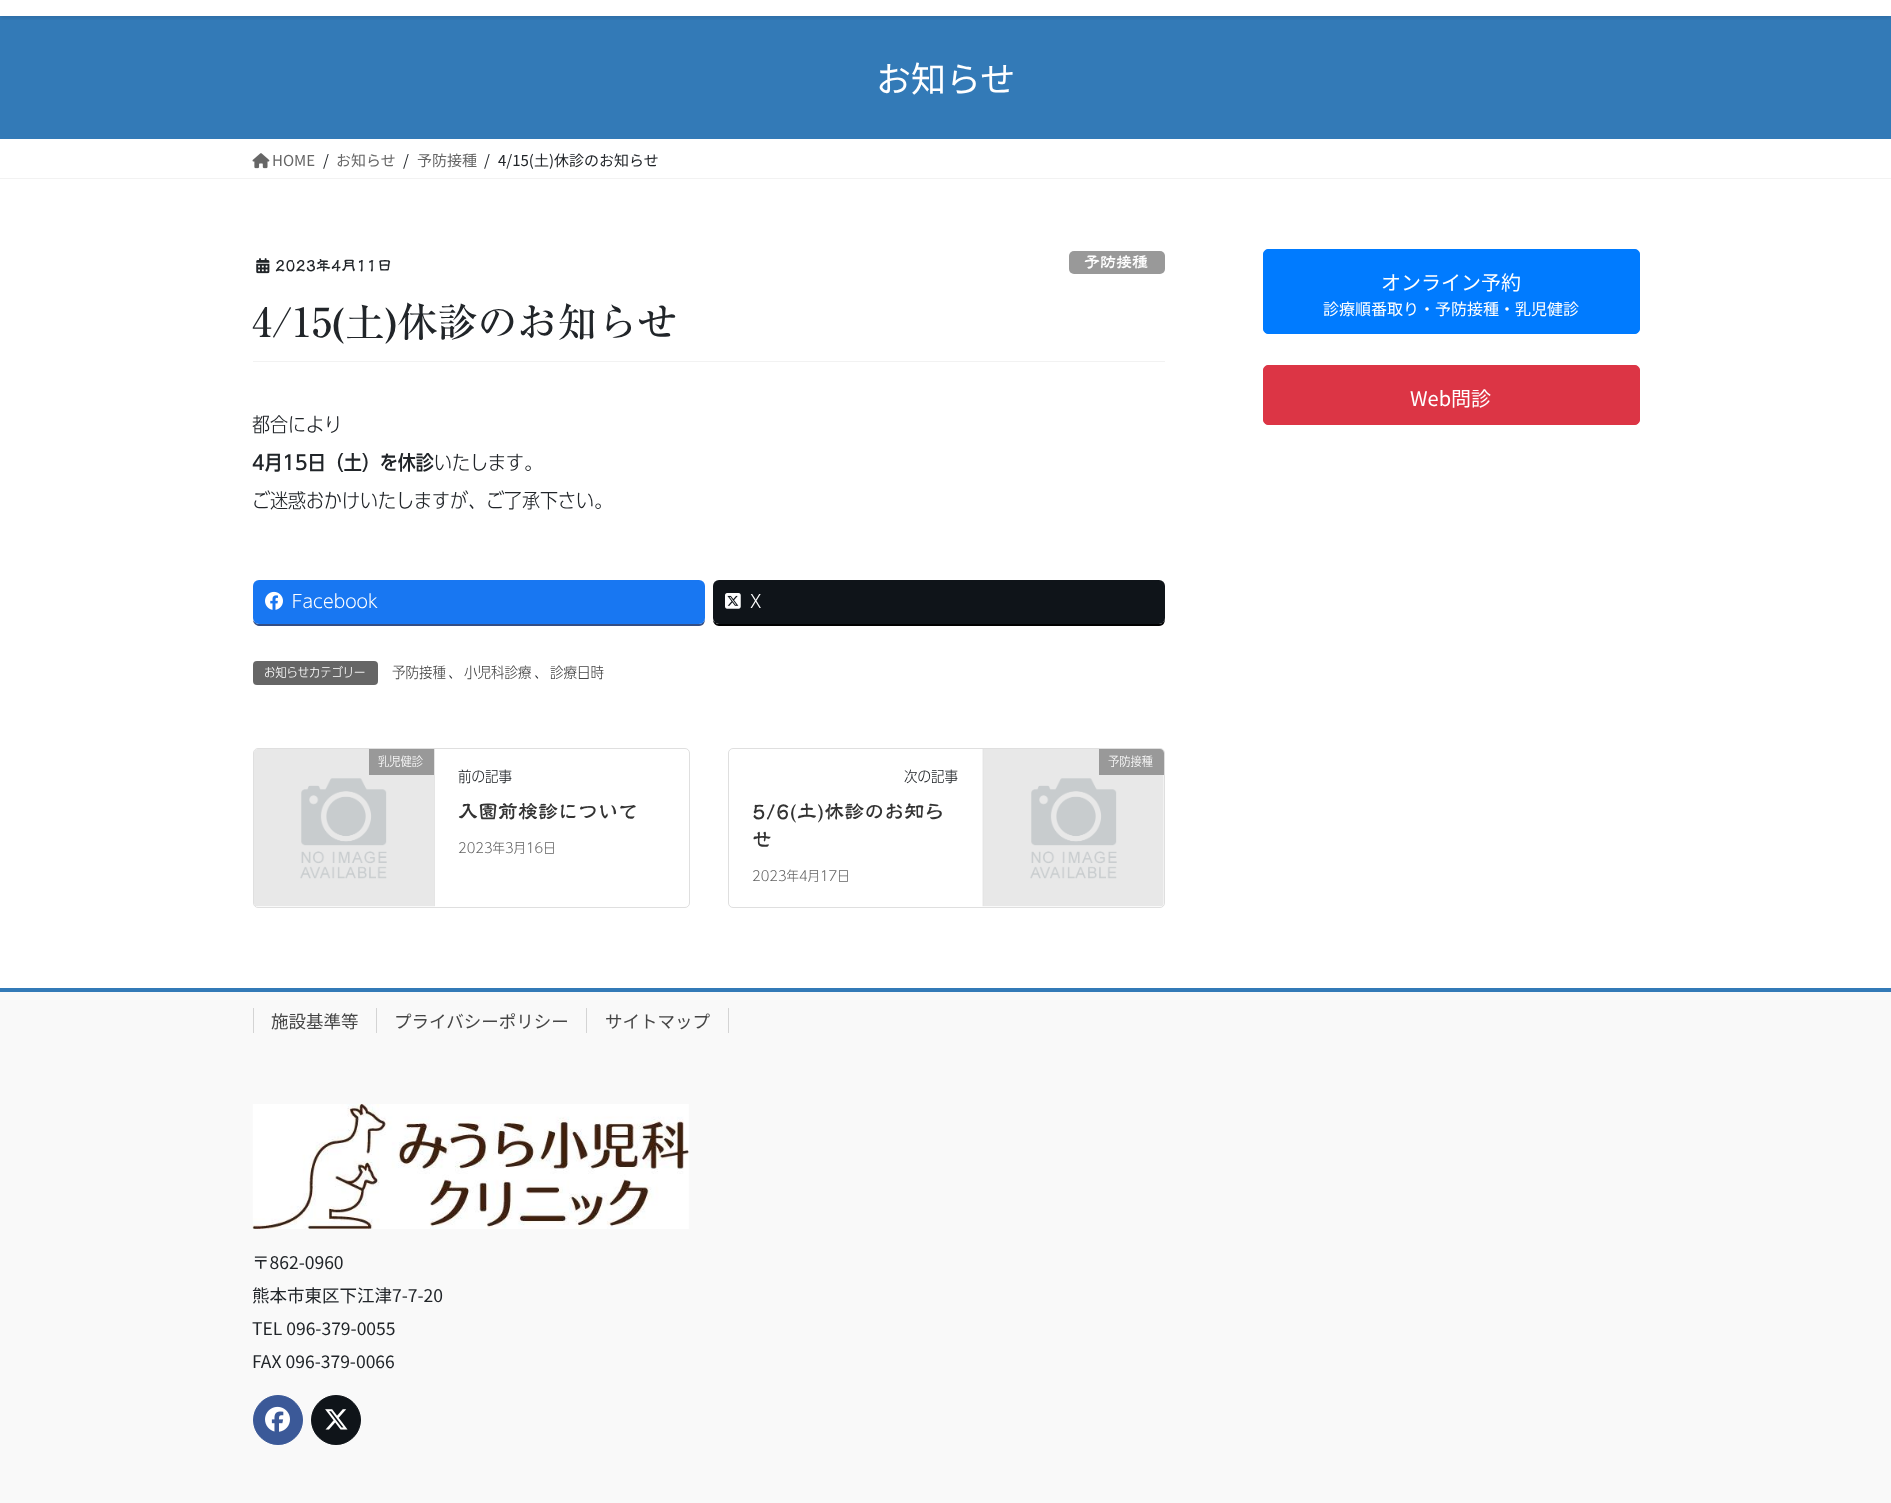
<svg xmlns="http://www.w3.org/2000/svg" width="1891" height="1503">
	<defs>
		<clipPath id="clip1"><rect x="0" y="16" width="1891" height="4" /></clipPath>
	</defs>
	<rect width="100%" height="100%" fill="#FFFFFF" />
	<rect x="0" y="16" width="1891" height="123" fill="#337AB7" />
	<g clip-path="url(#clip1)">
		<rect x="0" y="-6" width="1891" height="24" fill="#000000" fill-opacity="0.1" filter="blur(2px)" />
	</g>
	<text x="876" y="92" font-family="Noto Sans JP" font-size="35" fill="#FFFFFF">お知らせ</text>
	<rect x="0" y="178" width="1891" height="1" fill="#F2F2F2" />
	<image x="252" y="153" width="18" height="16" href="assets/img1.png" />
	<text x="272" y="166" font-family="Noto Sans JP" font-size="15" fill="#666666">HOME</text>
	<text x="323" y="166" font-family="Noto Sans JP" font-size="15" fill="#212529">/</text>
	<text x="336" y="166" font-family="Noto Sans JP" font-size="15" fill="#666666">お知らせ</text>
	<text x="403" y="166" font-family="Noto Sans JP" font-size="15" fill="#212529">/</text>
	<text x="417" y="166" font-family="Noto Sans JP" font-size="15" fill="#666666">予防接種</text>
	<g font-family="Noto Sans JP" font-size="15" fill="#212529">
		<text x="484" y="166">/</text>
		<text x="498" y="166">4/15(土)休診のお知らせ</text>
	</g>
	<rect x="253" y="361" width="912" height="1" fill="#F2F2F2" />
	<image x="256" y="258" width="14" height="16" href="assets/img2.png" />
	<text x="275" y="271" font-family="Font" font-size="15" fill="#212529">2023年4月11日</text>
	<rect x="1069" y="251" width="96" height="23" rx="5" fill="#999999" />
	<text x="1084" y="268" font-family="Font" font-size="16" fill="#FFFFFF">予防接種</text>
	<text x="252" y="337" font-family="'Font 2'" font-size="40" fill="#212529">4/15(土)休診のお知らせ</text>
	<text x="252" y="432" font-family="Font" font-size="20" font-weight="300" fill="#212529">都合により</text>
	<text x="252" y="470" font-family="Font" font-size="20" font-weight="500" fill="#212529">4月15日（土）を休診</text>
	<g font-family="Font" font-size="20" font-weight="300" fill="#212529">
		<text x="434" y="470">いたします。</text>
		<text x="252" y="508">ご迷惑おかけいたしますが、ご了承下さい。</text>
	</g>
	<path d="M253 620C253 623 256 626 259 626H699C704 626 705 622 705 618C705 621 702 624 699 624H259C256 624 254 622 253 620Z" fill="#344E84" />
	<rect x="253" y="580" width="452" height="44" rx="6" fill="#1877F2" />
	<image x="265" y="591" width="18" height="19" href="assets/img3.png" />
	<text x="292" y="608" font-family="Font" font-size="18" font-weight="300" fill="#FFFFFF">Facebook</text>
	<path d="M713 620C713 623 716 626 719 626H1159C1164 626 1165 622 1165 618C1165 621 1162 624 1159 624H719C716 624 714 622 713 620Z" fill="#000000" />
	<rect x="713" y="580" width="452" height="44" rx="6" fill="#0F1419" />
	<image x="725" y="593" width="16" height="16" href="assets/img4.png" />
	<text x="750" y="608" font-family="Font" font-size="18" font-weight="300" fill="#FFFFFF">X</text>
	<rect x="253" y="661" width="125" height="24" rx="4" fill="#666666" />
	<text x="264" y="677" font-family="Font" font-size="12.5" font-weight="300" fill="#FFFFFF">お知らせカテゴリー</text>
	<text x="392" y="678" font-family="Font" font-size="15" font-weight="300" fill="#464646">予防接種</text>
	<text x="448" y="678" font-family="Font" font-size="15" font-weight="300" fill="#212529">、</text>
	<text x="464" y="678" font-family="Font" font-size="15" font-weight="300" fill="#464646">小児科診療</text>
	<text x="534" y="678" font-family="Font" font-size="15" font-weight="300" fill="#212529">、</text>
	<text x="550" y="678" font-family="Font" font-size="15" font-weight="300" fill="#464646">診療日時</text>
	<rect x="253.5" y="748.5" width="436" height="159" rx="4.5" fill="none" stroke="#DFDFDF" />
	<image x="254" y="749" width="181" height="158" href="assets/img5.png" />
	<rect x="434" y="749" width="1" height="157" fill="#E5E5E5" />
	<rect x="369" y="749" width="65" height="26" fill="#999999" />
	<text x="378" y="766" font-family="Font" font-size="12.5" font-weight="300" fill="#FFFFFF">乳児健診</text>
	<text x="458" y="782" font-family="Font" font-size="15" font-weight="300" fill="#212529">前の記事</text>
	<text x="458" y="819" font-family="Font" font-size="20" fill="#333333">入園前検診について</text>
	<text x="458" y="853" font-family="Font" font-size="13.75" font-weight="300" fill="#666666">2023年3月16日</text>
	<rect x="728.5" y="748.5" width="436" height="159" rx="4.5" fill="none" stroke="#DFDFDF" />
	<image x="982" y="749" width="182" height="158" href="assets/img6.png" />
	<rect x="983" y="749" width="1" height="157" fill="#E5E5E5" />
	<path d="M1099 749H1160C1162 749 1164 751 1164 753V775H1099Z" fill="#999999" />
	<text x="1108" y="766" font-family="Font" font-size="12.5" font-weight="300" fill="#FFFFFF">予防接種</text>
	<text x="904" y="782" font-family="Font" font-size="15" font-weight="300" fill="#212529">次の記事</text>
	<g font-family="Font" font-size="20" fill="#333333">
		<text x="752" y="819">5/6(土)休診のお知ら</text>
		<text x="752" y="847">せ</text>
	</g>
	<text x="752" y="881" font-family="Font" font-size="13.75" font-weight="300" fill="#666666">2023年4月17日</text>
	<rect x="1263.5" y="249.5" width="376" height="84" rx="4.5" fill="#007BFF" stroke="#007BFF" />
	<text x="1381" y="290" font-family="Noto Sans JP" font-size="20" fill="#FFFFFF">オンライン予約</text>
	<text x="1323" y="315" font-family="Noto Sans JP" font-size="16" fill="#FFFFFF">診療順番取り・予防接種・乳児健診</text>
	<rect x="1263.5" y="365.5" width="376" height="59" rx="4.5" fill="#DC3545" stroke="#DC3545" />
	<text x="1410" y="406" font-family="Noto Sans JP" font-size="20" fill="#FFFFFF">Web問診</text>
	<rect x="0" y="992" width="1891" height="511" fill="#F9F9F9" />
	<rect x="0" y="988" width="1891" height="4" fill="#337AB7" />
	<text x="271" y="1028" font-family="Noto Sans JP" font-size="17.5" fill="#464646">施設基準等</text>
	<rect x="253" y="1008" width="1" height="25" fill="#D4D4D4" />
	<text x="394" y="1028" font-family="Noto Sans JP" font-size="17.5" fill="#464646">プライバシーポリシー</text>
	<rect x="376" y="1008" width="1" height="25" fill="#D4D4D4" />
	<text x="605" y="1028" font-family="Noto Sans JP" font-size="17.5" fill="#464646">サイトマップ</text>
	<rect x="728" y="1008" width="1" height="25" fill="#D4D4D4" />
	<rect x="586" y="1008" width="1" height="25" fill="#D4D4D4" />
	<image x="252" y="1104" width="437" height="125" href="assets/img7.png" />
	<g font-family="Noto Sans JP" font-size="17.5" fill="#212529">
		<text x="252" y="1269">〒862-0960</text>
		<text x="252" y="1302">熊本市東区下江津7-7-20</text>
		<text x="252" y="1335">TEL 096-379-0055</text>
		<text x="252" y="1368">FAX 096-379-0066</text>
	</g>
	<circle cx="278" cy="1420" r="24.5" fill="#3B5998" stroke="#3B5998" />
	<image x="265" y="1406" width="25" height="26" href="assets/img8.png" />
	<circle cx="336" cy="1420" r="24.5" fill="#0F1419" stroke="#0F1419" />
	<image x="325" y="1409" width="23" height="21" href="assets/img9.png" />
</svg>
